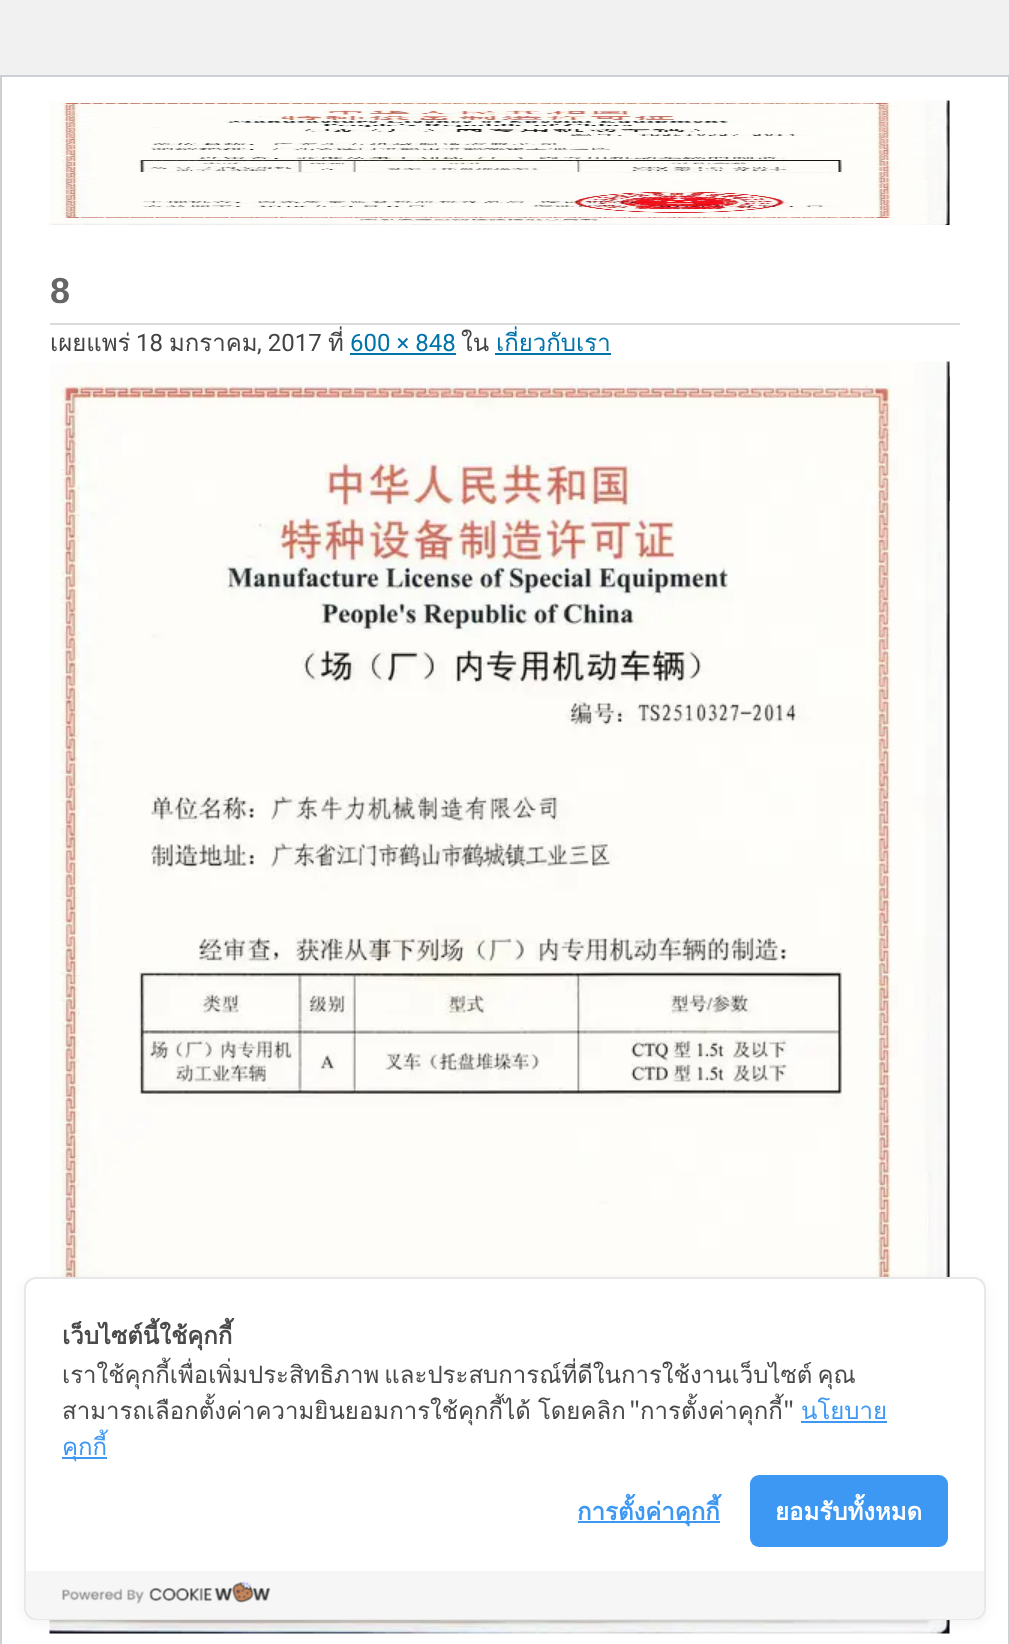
<svg xmlns="http://www.w3.org/2000/svg" width="1009" height="1644">
	<rect width="100%" height="100%" fill="#F1F1F1" />
	<rect x="1" y="76" width="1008" height="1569" fill="#FFFFFF" stroke="#CCD0D4" stroke-width="2" />
	<image x="49" y="100" width="901" height="125" href="assets/img1.png" />
	<image x="49" y="376" width="901" height="125" href="assets/img1.png" />
	<rect x="50" y="323" width="910" height="2" fill="#DADADA" />
	<text x="50" y="303" font-family="Liberation Sans" font-size="36" font-weight="700" fill="#666666">8</text>
	<text x="50" y="351" font-family="Loma" font-size="24" fill="#444444">เผยแพร่</text>
	<text x="136" y="351" font-family="Roboto" font-size="24" fill="#444444">18</text>
	<text x="169" y="351" font-family="Loma" font-size="24" fill="#444444">มกราคม</text>
	<text x="257" y="351" font-family="Roboto" font-size="24" fill="#444444">, 2017</text>
	<text x="328" y="351" font-family="Loma" font-size="24" fill="#444444">ที่</text>
	<text x="350" y="351" font-family="Roboto" font-size="24" fill="#0073AA">600 × 848</text>
	<rect x="350" y="353" width="106" height="2" fill="#0073AA" />
	<text x="461" y="351" font-family="Loma" font-size="24" fill="#444444">ใน</text>
	<text x="496" y="351" font-family="Loma" font-size="24" fill="#0073AA">เกี่ยวกับเรา</text>
	<rect x="495" y="353" width="116" height="2" fill="#0073AA" />
	<image x="49" y="361" width="901" height="1273" href="assets/img2.png" />
	<rect x="24" y="1280" width="962" height="343" rx="12" fill="#000000" fill-opacity="0.05" filter="blur(6px)" />
	<rect x="25" y="1278" width="960" height="341" rx="11" fill="#FFFFFF" stroke="#E8E8E8" stroke-width="2" />
	<text x="62" y="1344" font-family="Loma" font-size="24" font-weight="700" fill="#4A4A4A">เว็บไซต์นี้ใช้คุกกี้</text>
	<g font-family="Loma" font-size="24" fill="#4A4A4A">
		<text x="62" y="1383" word-spacing="-3">เราใช้คุกกี้เพื่อเพิ่มประสิทธิภาพ และประสบการณ์ที่ดีในการใช้งานเว็บไซต์ คุณ</text>
		<text x="62" y="1419" word-spacing="-1">สามารถเลือกตั้งค่าความยินยอมการใช้คุกกี้ได้ โดยคลิก</text>
	</g>
	<text x="629" y="1419" font-family="Noto Sans JP" font-size="24" fill="#4A4A4A">"</text>
	<text x="640" y="1419" font-family="Loma" font-size="24" fill="#4A4A4A">การตั้งค่าคุกกี้</text>
	<text x="783" y="1419" font-family="Noto Sans JP" font-size="24" fill="#4A4A4A">"</text>
	<text x="801" y="1419" font-family="Loma" font-size="24" fill="#3D98F3">นโยบาย</text>
	<rect x="801" y="1421" width="86" height="2" fill="#3D98F3" />
	<rect x="62" y="1457" width="45" height="2" fill="#3D98F3" />
	<text x="62" y="1455" font-family="Loma" font-size="24" fill="#3D98F3">คุกกี้</text>
	<rect x="578" y="1521" width="142" height="2" fill="#3D98F3" />
	<text x="577" y="1520" font-family="Loma" font-size="24" font-weight="700" fill="#3D98F3">การตั้งค่าคุกกี้</text>
	<rect x="750" y="1475" width="198" height="72" rx="9" fill="#3D98F3" />
	<text x="775" y="1520" font-family="Loma" font-size="24" font-weight="700" fill="#FFFFFF">ยอมรับทั้งหมด</text>
	<path d="M26 1571H984V1607C984 1613.5 978.5 1619 972 1619H38C31.5 1619 26 1613.5 26 1607Z" fill="#F6F6F6" />
	<image x="62" y="1581" width="209" height="23" href="assets/img3.png" />
</svg>
